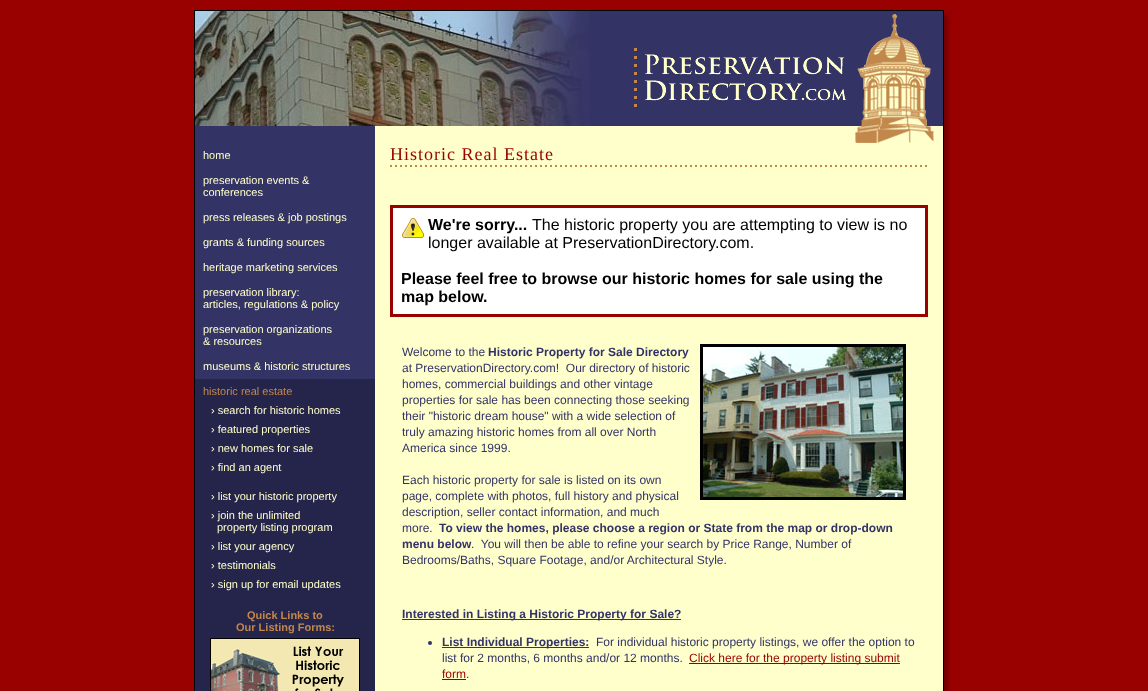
<svg xmlns="http://www.w3.org/2000/svg" width="1148" height="691">
	<rect width="100%" height="100%" fill="#990000" />
	<rect x="194" y="10" width="750" height="1" fill="#000000" />
	<image x="944" y="10" width="7" height="681" href="assets/img1.png" />
	<image x="944" y="10" width="6" height="8" href="assets/img2.png" />
	<rect x="194" y="11" width="1" height="680" fill="#000000" />
	<rect x="589" y="11" width="354" height="115" fill="#333366" />
	<image x="195" y="11" width="394" height="115" href="assets/img3.png" />
	<image x="634" y="14" width="297" height="112" href="assets/img4.png" />
	<rect x="943" y="11" width="1" height="680" fill="#000000" />
	<rect x="195" y="126" width="180" height="253" fill="#333366" />
	<g font-family="Liberation Sans" font-size="11" fill="#FFFFCC">
		<text x="203" y="159">home</text>
		<text x="203" y="184">preservation events &amp;</text>
		<text x="203" y="196">conferences</text>
		<text x="203" y="221">press releases &amp; job postings</text>
		<text x="203" y="246">grants &amp; funding sources</text>
		<text x="203" y="271">heritage marketing services</text>
		<text x="203" y="296">preservation library:</text>
		<text x="203" y="308">articles, regulations &amp; policy</text>
		<text x="203" y="333">preservation organizations</text>
		<text x="203" y="345">&amp; resources</text>
		<text x="203" y="370">museums &amp; historic structures</text>
	</g>
	<rect x="195" y="379" width="180" height="312" fill="#25254B" />
	<text x="203" y="395" font-family="Liberation Sans" font-size="11" fill="#C2874B">historic real estate</text>
	<g font-family="Liberation Sans" font-size="11" fill="#FFFFCC">
		<text x="211" y="414">› search for historic homes</text>
		<text x="211" y="433">› featured properties</text>
		<text x="211" y="452">› new homes for sale</text>
		<text x="211" y="471">› find an agent</text>
		<text x="211" y="500">› list your historic property</text>
		<text x="211" y="519">› join the unlimited</text>
		<text x="217" y="531">property listing program</text>
		<text x="211" y="550">› list your agency</text>
		<text x="211" y="569">› testimonials</text>
		<text x="211" y="588">› sign up for email updates</text>
	</g>
	<g font-family="Liberation Sans" font-size="11" font-weight="700" fill="#C2874B">
		<text x="247" y="619">Quick Links to</text>
		<text x="236" y="631">Our Listing Forms:</text>
	</g>
	<image x="210" y="638" width="150" height="53" href="assets/img5.png" />
	<rect x="375" y="126" width="568" height="565" fill="#FFFFCC" />
	<image x="855" y="126" width="79" height="17" href="assets/img6.png" />
	<text x="390" y="160" font-family="Liberation Serif" font-size="18" letter-spacing="1" fill="#990000">Historic Real Estate</text>
	<image x="390" y="165" width="537" height="2" href="assets/img7.png" />
	<rect x="391.5" y="206.5" width="535" height="109" fill="#FFFFFF" stroke="#990000" stroke-width="3" />
	<image x="402" y="218" width="22" height="20" href="assets/img8.png" />
	<text x="428" y="230" font-family="Liberation Sans" font-size="16" font-weight="700" fill="#000000">We're sorry...</text>
	<g font-family="Liberation Sans" font-size="16" fill="#000000">
		<text x="532" y="230">The historic property you are attempting to view is no</text>
		<text x="428" y="248">longer available at PreservationDirectory.com.</text>
	</g>
	<g font-family="Liberation Sans" font-size="16" font-weight="700" fill="#000000">
		<text x="401" y="284">Please feel free to browse our historic homes for sale using the</text>
		<text x="401" y="302">map below.</text>
	</g>
	<text x="402" y="356" font-family="Liberation Sans" font-size="12" fill="#333366">Welcome to the</text>
	<text x="488" y="356" font-family="Liberation Sans" font-size="12" font-weight="700" fill="#333366">Historic Property for Sale Directory</text>
	<rect x="701.5" y="345.5" width="203" height="153" fill="none" stroke="#000000" stroke-width="3" />
	<image x="703" y="347" width="200" height="150" href="assets/img9.png" />
	<g font-family="Liberation Sans" font-size="12" fill="#333366">
		<text x="402" y="372" xml:space="preserve">at PreservationDirectory.com!  Our directory of historic</text>
		<text x="402" y="388">homes, commercial buildings and other vintage</text>
		<text x="402" y="404">properties for sale has been connecting those seeking</text>
		<text x="402" y="420">their "historic dream house" with a wide selection of</text>
		<text x="402" y="436">truly amazing historic homes from all over North</text>
		<text x="402" y="452">America since 1999.</text>
		<text x="402" y="484">Each historic property for sale is listed on its own</text>
		<text x="402" y="500">page, complete with photos, full history and physical</text>
		<text x="402" y="516">description, seller contact information, and much</text>
		<text x="402" y="532">more.</text>
	</g>
	<g font-family="Liberation Sans" font-size="12" font-weight="700" fill="#333366">
		<text x="439" y="532">To view the homes, please choose a region or State from the map or drop-down</text>
		<text x="402" y="548">menu below</text>
	</g>
	<g font-family="Liberation Sans" font-size="12" fill="#333366">
		<text x="471" y="548" xml:space="preserve">.  You will then be able to refine your search by Price Range, Number of</text>
		<text x="402" y="564">Bedrooms/Baths, Square Footage, and/or Architectural Style.</text>
	</g>
	<rect x="402" y="619" width="279" height="1" fill="#333366" />
	<text x="402" y="618" font-family="Liberation Sans" font-size="12" font-weight="700" fill="#333366">Interested in Listing a Historic Property for Sale?</text>
	<circle cx="430" cy="643" r="2" fill="#333366" />
	<rect x="442" y="647" width="147" height="1" fill="#333366" />
	<text x="442" y="646" font-family="Liberation Sans" font-size="12" font-weight="700" fill="#333366">List Individual Properties:</text>
	<g font-family="Liberation Sans" font-size="12" fill="#333366">
		<text x="596" y="646">For individual historic property listings, we offer the option to</text>
		<text x="442" y="662">list for 2 months, 6 months and/or 12 months.</text>
	</g>
	<rect x="689" y="663" width="211" height="1" fill="#990000" />
	<g font-family="Liberation Sans" font-size="12" fill="#990000">
		<text x="689" y="662">Click here for the property listing submit</text>
		<text x="442" y="678">form</text>
	</g>
	<rect x="442" y="679" width="24" height="1" fill="#990000" />
	<text x="466" y="678" font-family="Liberation Sans" font-size="12" fill="#333366">.</text>
</svg>
